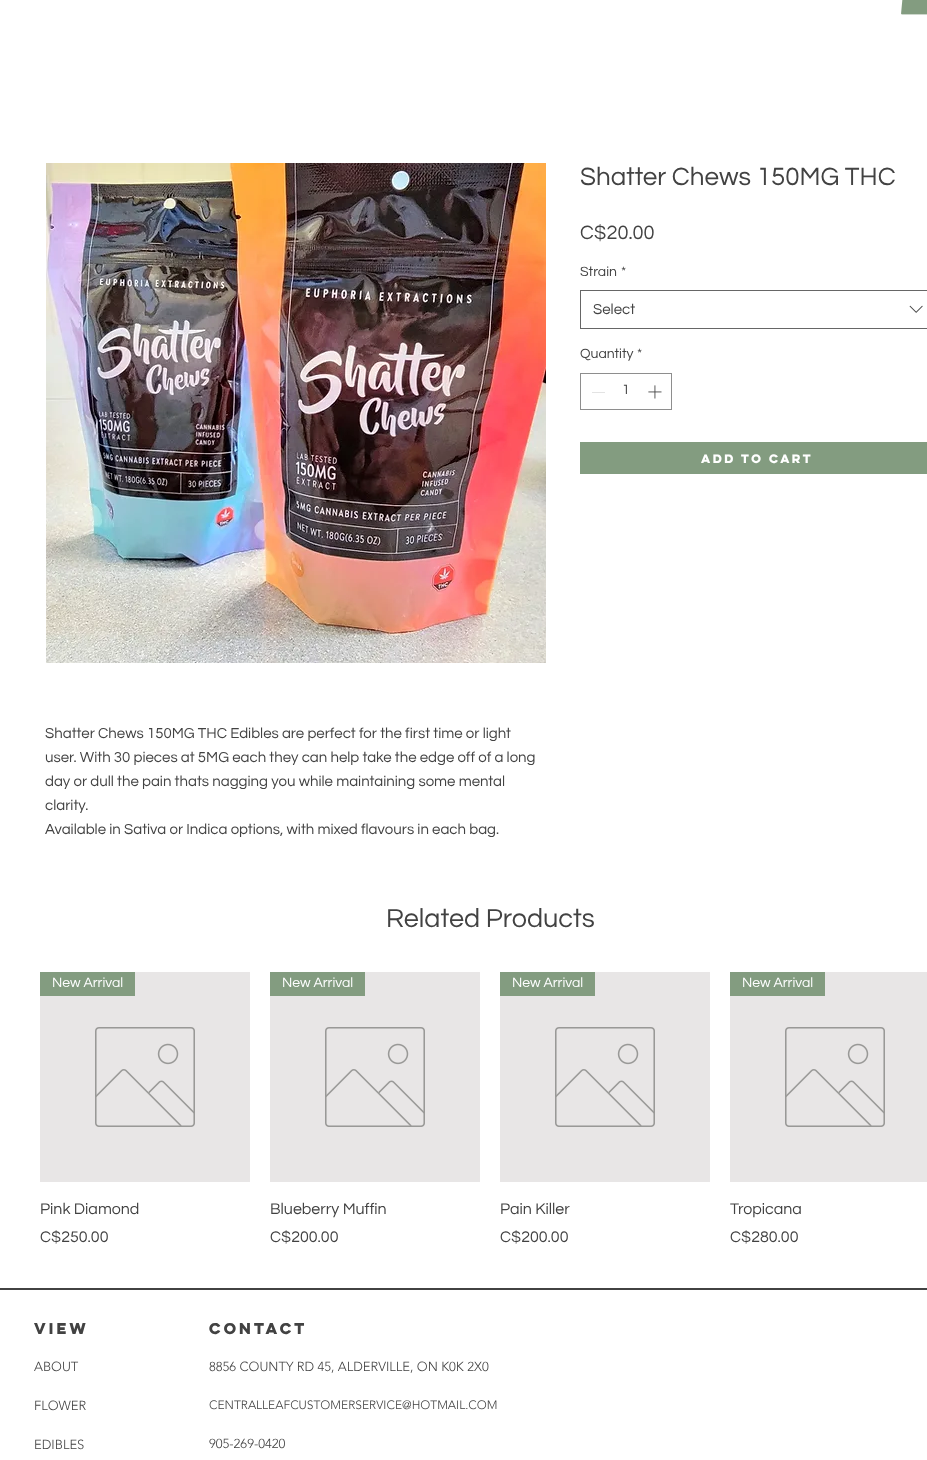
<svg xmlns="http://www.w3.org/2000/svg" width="927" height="1460">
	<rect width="100%" height="100%" fill="#FFFFFF" />
	<image x="901" y="0" width="26" height="15" href="assets/img1.png" />
	<text x="580" y="185" font-family="Questrial" font-size="26" fill="#424242">Shatter Chews 150MG THC</text>
	<text x="580" y="239" font-family="Questrial" font-size="20" fill="#424242">C$20.00</text>
	<g font-family="Questrial" font-size="14" fill="#424242">
		<text x="580" y="276">Strain</text>
		<text x="621" y="276">*</text>
	</g>
	<rect x="580.5" y="290.5" width="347" height="38" fill="none" stroke="#666666" />
	<text x="593" y="314" font-family="Questrial" font-size="15" fill="#424242">Select</text>
	<image x="909" y="305" width="14" height="8" href="assets/img2.png" />
	<g font-family="Questrial" font-size="14" fill="#424242">
		<text x="580" y="358">Quantity</text>
		<text x="637" y="358">*</text>
	</g>
	<rect x="580.5" y="373.5" width="91" height="36" fill="none" stroke="#8E8E8E" />
	<rect x="592" y="392" width="13" height="1" fill="#E3E3E3" />
	<text x="622" y="394" font-family="Questrial" font-size="14" fill="#424242">1</text>
	<image x="648" y="385" width="14" height="14" href="assets/img3.png" />
	<rect x="580" y="442" width="347" height="32" fill="#839C80" />
	<text x="701" y="463" font-family="'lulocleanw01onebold'" font-size="11" font-weight="700" fill="#FFFFFF">Add to Cart</text>
	<image x="46" y="163" width="500" height="500" href="assets/img4.png" />
	<g font-family="Questrial" font-size="15" fill="#424242">
		<text x="45" y="738">Shatter Chews 150MG THC Edibles are perfect for the first time or light</text>
		<text x="45" y="762">user. With 30 pieces at 5MG each they can help take the edge off of a long</text>
		<text x="45" y="786">day or dull the pain thats nagging you while maintaining some mental</text>
		<text x="45" y="810">clarity.</text>
		<text x="45" y="834">Available in Sativa or Indica options, with mixed flavours in each bag.</text>
	</g>
	<text x="386" y="927" font-family="Questrial" font-size="27" fill="#424242">Related Products</text>
	<rect x="40" y="972" width="210" height="210" fill="#E8E6E6" />
	<image x="95" y="1027" width="100" height="100" href="assets/img5.png" />
	<rect x="40" y="972" width="95" height="24" fill="#839C80" />
	<text x="52" y="987" font-family="Questrial" font-size="14" fill="#FFFFFF">New Arrival</text>
	<g font-family="Questrial" font-size="16" fill="#424242">
		<text x="40" y="1214">Pink Diamond</text>
		<text x="40" y="1242">C$250.00</text>
	</g>
	<rect x="270" y="972" width="210" height="210" fill="#E8E6E6" />
	<image x="325" y="1027" width="100" height="100" href="assets/img5.png" />
	<rect x="270" y="972" width="95" height="24" fill="#839C80" />
	<text x="282" y="987" font-family="Questrial" font-size="14" fill="#FFFFFF">New Arrival</text>
	<g font-family="Questrial" font-size="16" fill="#424242">
		<text x="270" y="1214">Blueberry Muffin</text>
		<text x="270" y="1242">C$200.00</text>
	</g>
	<rect x="500" y="972" width="210" height="210" fill="#E8E6E6" />
	<image x="555" y="1027" width="100" height="100" href="assets/img5.png" />
	<rect x="500" y="972" width="95" height="24" fill="#839C80" />
	<text x="512" y="987" font-family="Questrial" font-size="14" fill="#FFFFFF">New Arrival</text>
	<g font-family="Questrial" font-size="16" fill="#424242">
		<text x="500" y="1214">Pain Killer</text>
		<text x="500" y="1242">C$200.00</text>
	</g>
	<rect x="730" y="972" width="197" height="210" fill="#E8E6E6" />
	<image x="785" y="1027" width="100" height="100" href="assets/img5.png" />
	<rect x="730" y="972" width="95" height="24" fill="#839C80" />
	<text x="742" y="987" font-family="Questrial" font-size="14" fill="#FFFFFF">New Arrival</text>
	<g font-family="Questrial" font-size="16" fill="#424242">
		<text x="730" y="1214">Tropicana</text>
		<text x="730" y="1242">C$280.00</text>
	</g>
	<rect x="0" y="1288" width="927" height="2" fill="#424242" />
	<text x="34" y="1334" font-family="'lulocleanw01onebold'" font-size="14" font-weight="700" fill="#424242">VIEW</text>
	<g font-family="'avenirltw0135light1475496'" font-size="13" font-weight="300" fill="#424242">
		<text x="34" y="1371">ABOUT</text>
		<text x="34" y="1410">FLOWER</text>
		<text x="34" y="1449">EDIBLES</text>
	</g>
	<text x="209" y="1334" font-family="'lulocleanw01onebold'" font-size="14" font-weight="700" fill="#424242">CONTACT</text>
	<text x="209" y="1371" font-family="'avenirltw0135light1475496'" font-size="13" font-weight="300" fill="#424242">8856 COUNTY RD 45, ALDERVILLE, ON K0K 2X0</text>
	<text x="209" y="1409" font-family="'avenirltw0135light1475496'" font-size="12" font-weight="300" fill="#424242">CENTRALLEAFCUSTOMERSERVICE@HOTMAIL.COM</text>
	<text x="209" y="1448" font-family="'avenirltw0135light1475496'" font-size="13" font-weight="300" fill="#424242">905-269-0420</text>
</svg>
